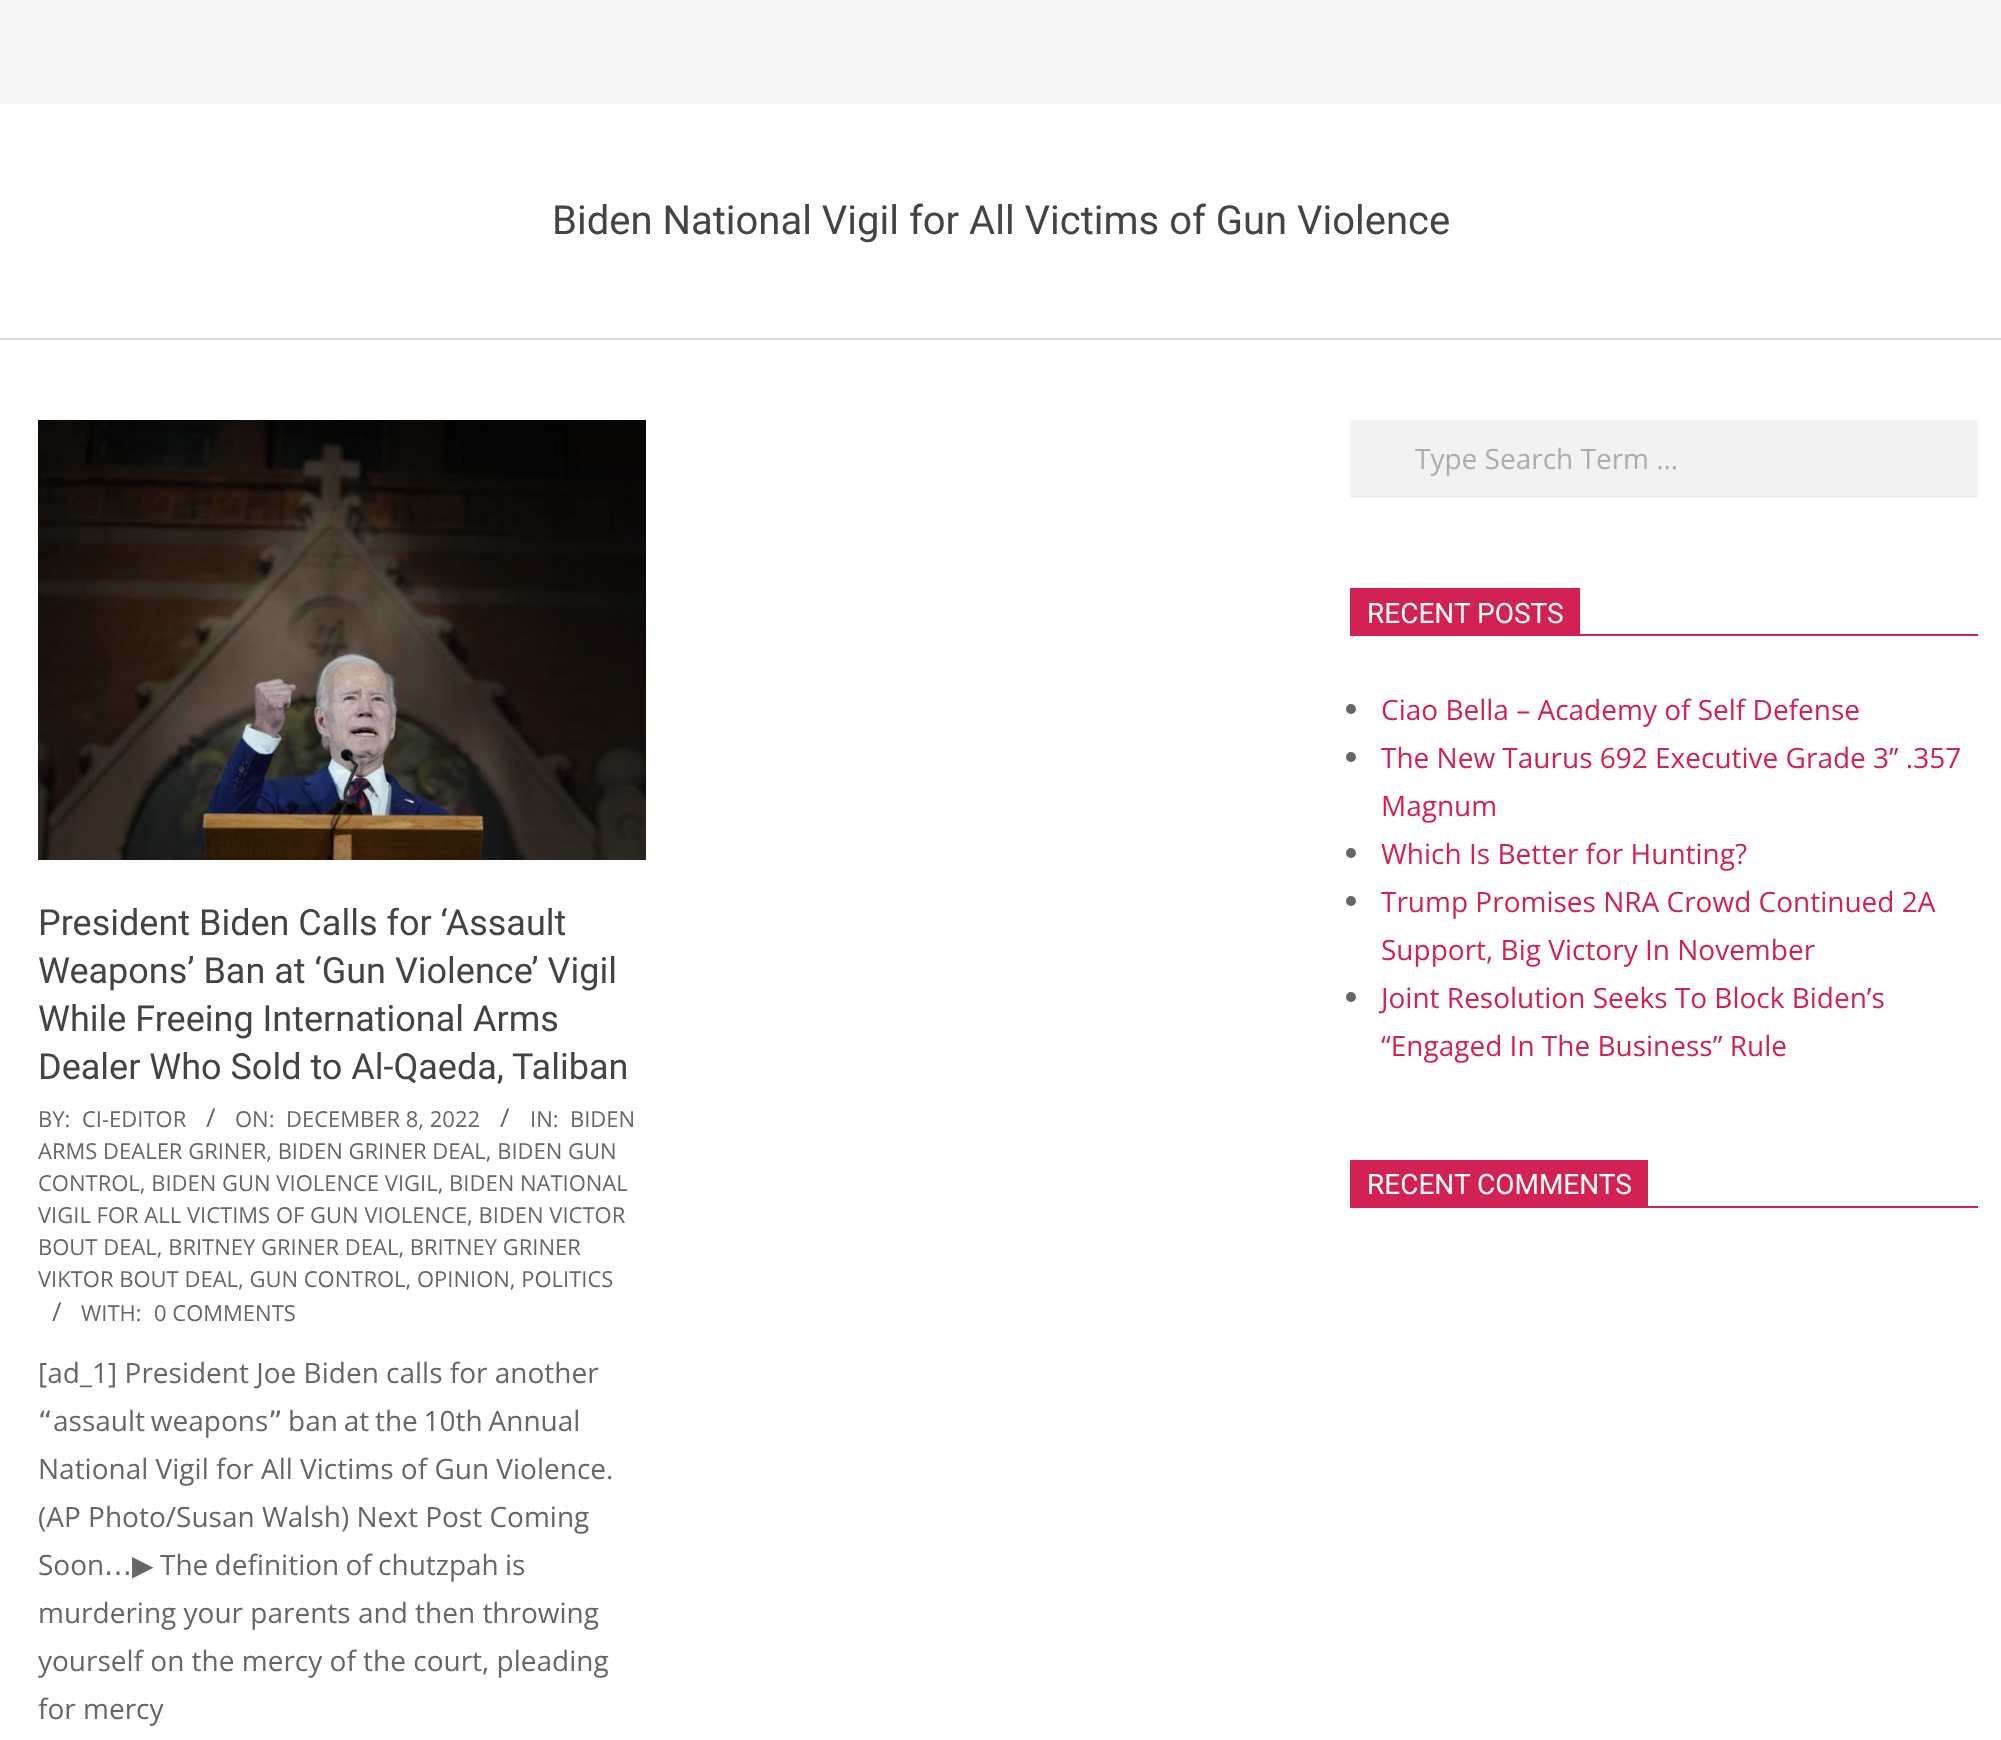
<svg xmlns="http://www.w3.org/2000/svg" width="2001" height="1740">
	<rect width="100%" height="100%" fill="#F7F7F7" />
	<rect x="0" y="104" width="2001" height="1636" fill="#FFFFFF" />
	<rect x="0" y="338" width="2001" height="2" fill="#DDDDDD" />
	<text x="552" y="234" font-family="Roboto" font-size="40" fill="#444444">Biden National Vigil for All Victims of Gun Violence</text>
	<rect x="1350" y="420" width="628" height="78" fill="#F2F2F2" />
	<text x="1415" y="469" font-family="Open Sans" font-size="28" fill="#ACACAC">Type Search Term …</text>
	<rect x="1350" y="588" width="230" height="46" fill="#D22254" />
	<text x="1367" y="623" font-family="Roboto" font-size="28" fill="#FFFFFF">RECENT POSTS</text>
	<rect x="1350" y="634" width="628" height="2" fill="#D22254" />
	<circle cx="1351" cy="709" r="5" fill="#666666" />
	<text x="1381" y="720" font-family="Open Sans" font-size="28" fill="#D22254">Ciao Bella – Academy of Self Defense</text>
	<circle cx="1351" cy="757" r="5" fill="#666666" />
	<g font-family="Open Sans" font-size="28" fill="#D22254">
		<text x="1381" y="768">The New Taurus 692 Executive Grade 3’’ .357</text>
		<text x="1381" y="816">Magnum</text>
	</g>
	<circle cx="1351" cy="853" r="5" fill="#666666" />
	<text x="1381" y="864" font-family="Open Sans" font-size="28" fill="#D22254">Which Is Better for Hunting?</text>
	<circle cx="1351" cy="901" r="5" fill="#666666" />
	<g font-family="Open Sans" font-size="28" fill="#D22254">
		<text x="1381" y="912">Trump Promises NRA Crowd Continued 2A</text>
		<text x="1381" y="960">Support, Big Victory In November</text>
	</g>
	<circle cx="1351" cy="997" r="5" fill="#666666" />
	<g font-family="Open Sans" font-size="28" fill="#D22254">
		<text x="1381" y="1008">Joint Resolution Seeks To Block Biden’s</text>
		<text x="1381" y="1056">“Engaged In The Business” Rule</text>
	</g>
	<rect x="1350" y="1160" width="298" height="46" fill="#D22254" />
	<text x="1367" y="1194" font-family="Roboto" font-size="28" fill="#FFFFFF">RECENT COMMENTS</text>
	<rect x="1350" y="1206" width="628" height="2" fill="#D22254" />
	<image x="38" y="420" width="608" height="440" href="assets/img1.png" />
	<g font-family="Roboto" font-size="36" fill="#444444">
		<text x="38" y="935">President Biden Calls for ‘Assault</text>
		<text x="38" y="983">Weapons’ Ban at ‘Gun Violence’ Vigil</text>
		<text x="38" y="1031">While Freeing International Arms</text>
		<text x="38" y="1079">Dealer Who Sold to Al-Qaeda, Taliban</text>
	</g>
	<g font-family="Open Sans" font-size="22" fill="#666666">
		<text x="38" y="1127">BY:</text>
		<text x="82" y="1127">CI-EDITOR</text>
	</g>
	<text x="206" y="1127" font-family="Open Sans" font-size="26" fill="#666666">/</text>
	<g font-family="Open Sans" font-size="22" fill="#666666">
		<text x="235" y="1127">ON:</text>
		<text x="286" y="1127">DECEMBER 8, 2022</text>
	</g>
	<text x="500" y="1127" font-family="Open Sans" font-size="26" fill="#666666">/</text>
	<g font-family="Open Sans" font-size="22" fill="#666666">
		<text x="530" y="1127">IN:</text>
		<text x="570" y="1127">BIDEN</text>
		<text x="38" y="1159">ARMS DEALER GRINER, BIDEN GRINER DEAL, BIDEN GUN</text>
		<text x="38" y="1191">CONTROL, BIDEN GUN VIOLENCE VIGIL, BIDEN NATIONAL</text>
		<text x="38" y="1223">VIGIL FOR ALL VICTIMS OF GUN VIOLENCE, BIDEN VICTOR</text>
		<text x="38" y="1255">BOUT DEAL, BRITNEY GRINER DEAL, BRITNEY GRINER</text>
		<text x="38" y="1287">VIKTOR BOUT DEAL, GUN CONTROL, OPINION, POLITICS</text>
	</g>
	<text x="52" y="1321" font-family="Open Sans" font-size="26" fill="#666666">/</text>
	<g font-family="Open Sans" font-size="22" fill="#666666">
		<text x="81" y="1321">WITH:</text>
		<text x="154" y="1321">0 COMMENTS</text>
	</g>
	<text x="38" y="1383" font-family="Open Sans" font-size="28" fill="#666666">[ad_1] President Joe Biden calls for another</text>
	<text x="38" y="1431" font-family="DejaVu Sans" font-size="28" fill="#666666">“</text>
	<text x="53" y="1431" word-spacing="-1.5" font-family="Open Sans" font-size="28" fill="#666666">assault weapons</text>
	<text x="268" y="1431" font-family="DejaVu Sans" font-size="28" fill="#666666">”</text>
	<g font-family="Open Sans" font-size="28" fill="#666666">
		<text x="288" y="1431" word-spacing="-1.5">ban at the 10th Annual</text>
		<text x="38" y="1479">National Vigil for All Victims of Gun Violence.</text>
		<text x="38" y="1527">(AP Photo/Susan Walsh) Next Post Coming</text>
		<text x="38" y="1575">Soon</text>
	</g>
	<text x="104" y="1575" font-family="DejaVu Sans" font-size="28" fill="#666666">…▶</text>
	<g font-family="Open Sans" font-size="28" fill="#666666">
		<text x="160" y="1575" word-spacing="-1">The definition of chutzpah is</text>
		<text x="38" y="1623">murdering your parents and then throwing</text>
		<text x="38" y="1671">yourself on the mercy of the court, pleading</text>
		<text x="38" y="1719">for mercy</text>
	</g>
</svg>
